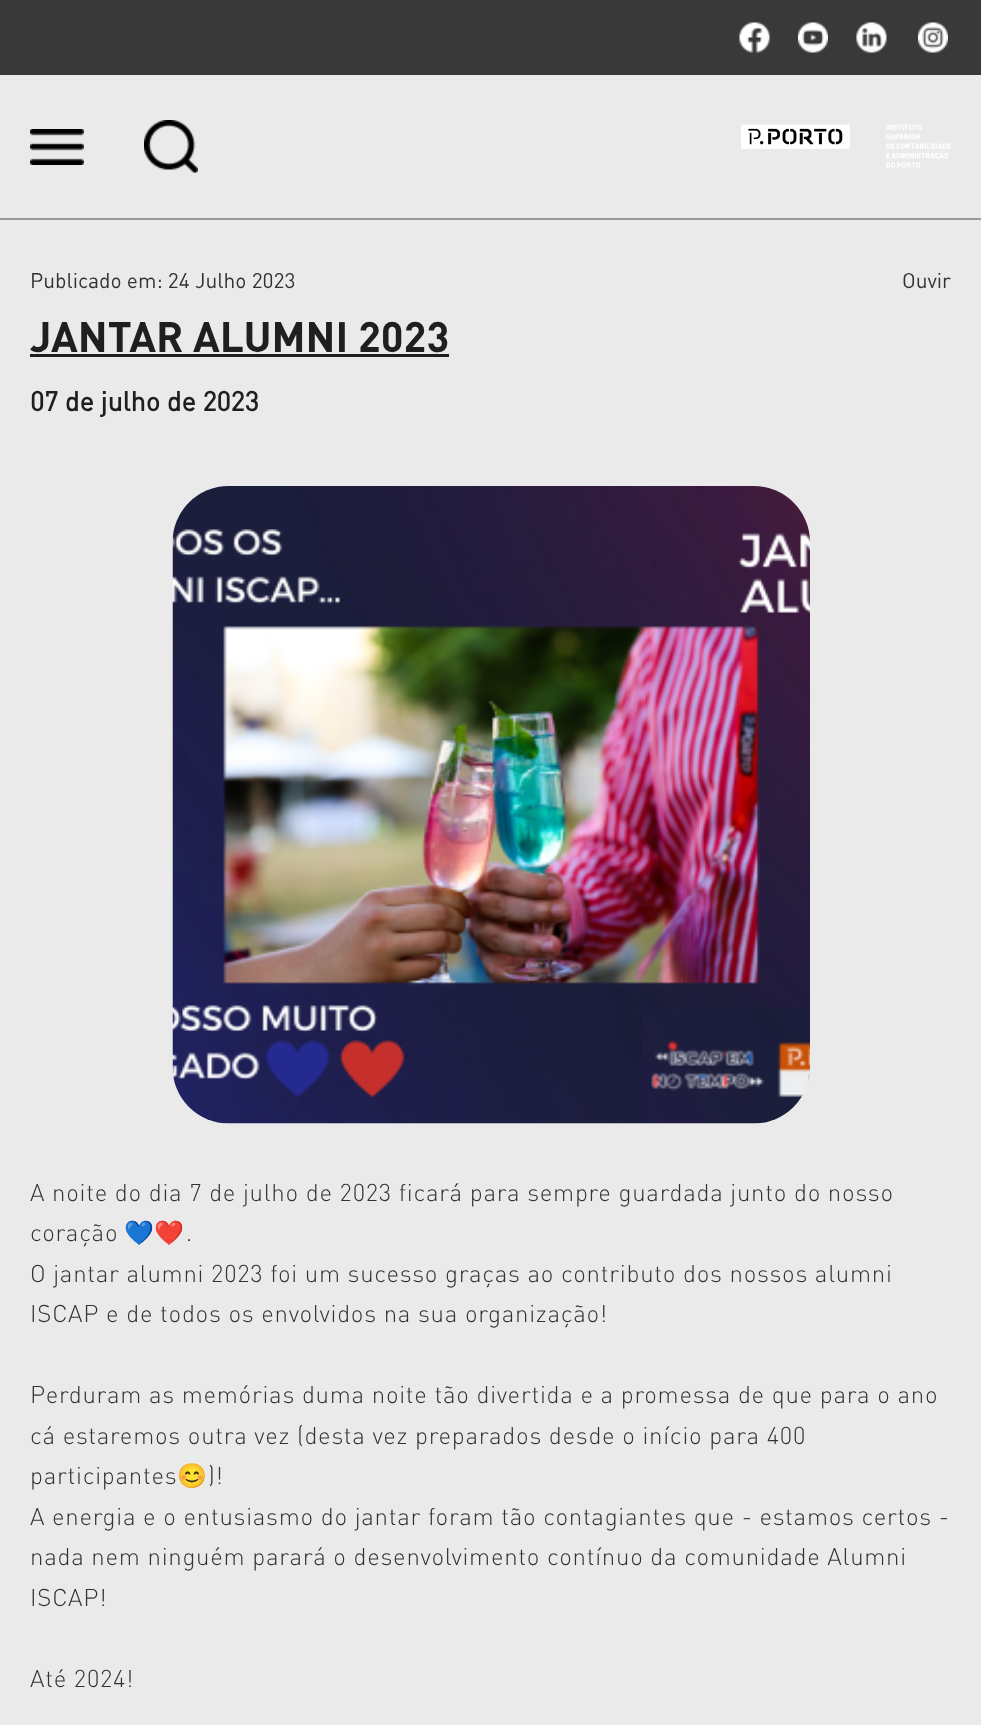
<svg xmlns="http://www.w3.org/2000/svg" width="981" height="1725">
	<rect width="100%" height="100%" fill="#EAEAEA" />
	<rect x="0" y="0" width="981" height="75" fill="#393939" />
	<image x="739" y="22" width="31" height="31" href="assets/img1.png" />
	<image x="798" y="22" width="30" height="31" href="assets/img2.png" />
	<image x="856" y="22" width="31" height="31" href="assets/img3.png" />
	<image x="918" y="22" width="30" height="31" href="assets/img4.png" />
	<image x="30" y="129" width="54" height="36" href="assets/img5.png" />
	<image x="144" y="120" width="54" height="53" href="assets/img6.png" />
	<image x="741" y="124" width="210" height="44" href="assets/img7.png" />
	<rect x="0" y="218" width="981" height="2" fill="#999999" />
	<g font-family="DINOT" font-size="21" fill="#333333">
		<text x="30" y="288">Publicado em: 24 Julho 2023</text>
		<text x="902" y="288">Ouvir</text>
	</g>
	<text x="30" y="352" font-family="DINOT" font-size="42" font-weight="700" fill="#1F1F1F">JANTAR ALUMNI 2023</text>
	<rect x="30" y="354" width="419" height="3" fill="#1F1F1F" />
	<text x="30" y="411" font-family="'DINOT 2'" font-size="27" font-weight="700" fill="#1F1F1F">07 de julho de 2023</text>
	<image x="172" y="486" width="638" height="638" href="assets/img8.png" />
	<g font-family="DINOT" font-size="24" font-weight="300" letter-spacing="0.75" fill="#333333">
		<text x="30" y="1201">A noite do dia 7 de julho de 2023 ficará para sempre guardada junto do nosso</text>
		<text x="30" y="1241">coração</text>
	</g>
	<text x="124" y="1241" font-family="Noto Color Emoji" font-size="24" letter-spacing="0.75" fill="#333333">💙❤️</text>
	<g font-family="DINOT" font-size="24" font-weight="300" letter-spacing="0.75" fill="#333333">
		<text x="186" y="1241">.</text>
		<text x="30" y="1282">O jantar alumni 2023 foi um sucesso graças ao contributo dos nossos alumni</text>
		<text x="30" y="1322">ISCAP e de todos os envolvidos na sua organização!</text>
		<text x="30" y="1403">Perduram as memórias duma noite tão divertida e a promessa de que para o ano</text>
		<text x="30" y="1444">cá estaremos outra vez (desta vez preparados desde o início para 400</text>
		<text x="30" y="1484">participantes</text>
	</g>
	<text x="177" y="1484" font-family="Noto Color Emoji" font-size="24" letter-spacing="0.75" fill="#333333">😊</text>
	<g font-family="DINOT" font-size="24" font-weight="300" letter-spacing="0.75" fill="#333333">
		<text x="208" y="1484">)!</text>
		<text x="30" y="1525">A energia e o entusiasmo do jantar foram tão contagiantes que - estamos certos -</text>
		<text x="30" y="1565">nada nem ninguém parará o desenvolvimento contínuo da comunidade Alumni</text>
		<text x="30" y="1606">ISCAP!</text>
		<text x="30" y="1687">Até 2024!</text>
	</g>
</svg>
